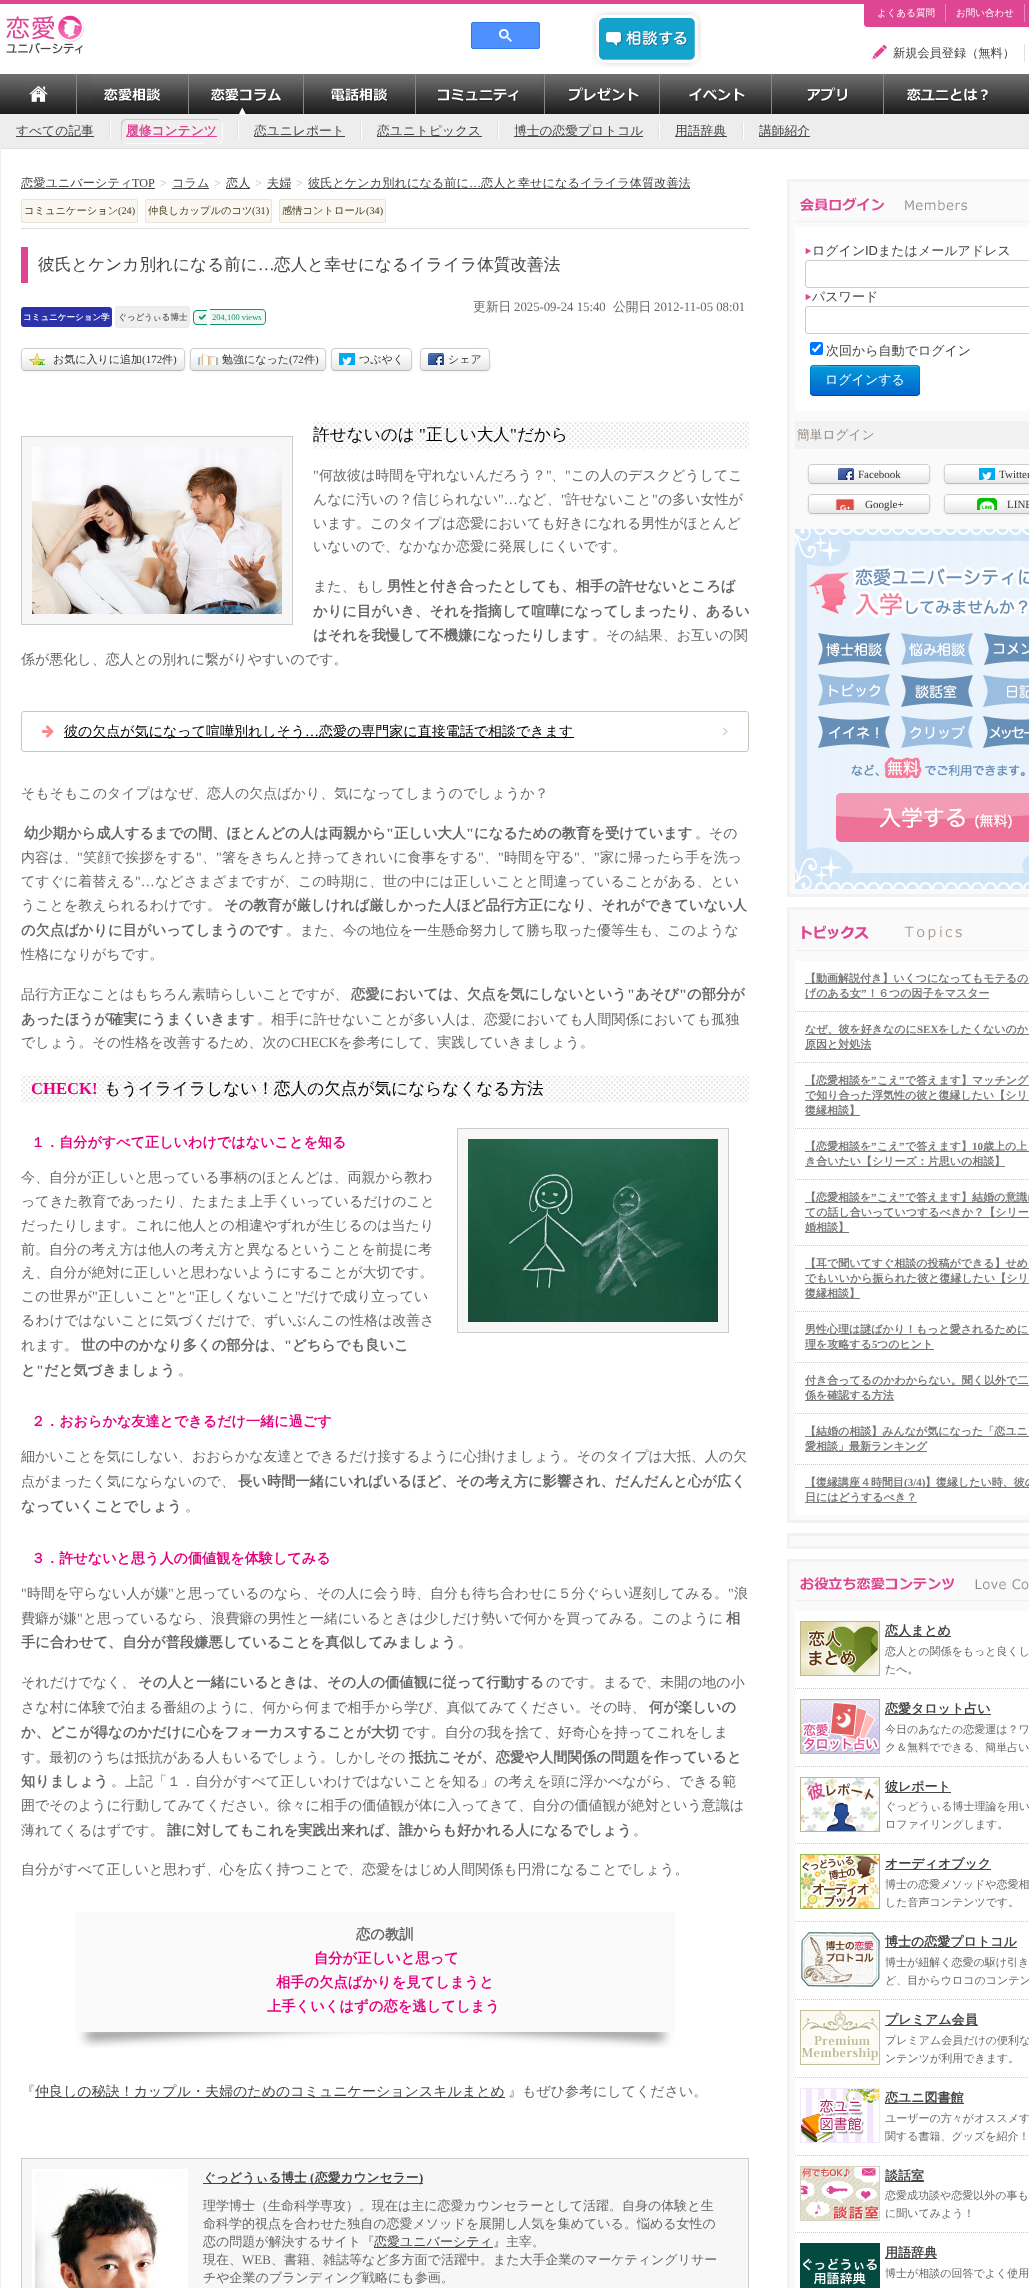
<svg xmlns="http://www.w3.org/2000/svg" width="1029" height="2288">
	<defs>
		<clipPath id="clip1"><rect x="21" y="348" width="164" height="23" rx="4" /></clipPath>
		<linearGradient id="g1" gradientUnits="userSpaceOnUse" x1="103" y1="349" x2="103" y2="370"><stop offset="0" stop-color="#FFFFFF" /><stop offset="0.25" stop-color="#FFFFFF" /><stop offset="1" stop-color="#E6E6E6" /></linearGradient>
		<clipPath id="clip2"><rect x="190" y="348" width="136" height="23" rx="4" /></clipPath>
		<linearGradient id="g2" gradientUnits="userSpaceOnUse" x1="258" y1="349" x2="258" y2="370"><stop offset="0" stop-color="#FFFFFF" /><stop offset="0.25" stop-color="#FFFFFF" /><stop offset="1" stop-color="#E6E6E6" /></linearGradient>
		<clipPath id="clip3"><rect x="331" y="348" width="81" height="23" rx="4" /></clipPath>
		<linearGradient id="g3" gradientUnits="userSpaceOnUse" x1="372" y1="349" x2="372" y2="370"><stop offset="0" stop-color="#FFFFFF" /><stop offset="0.25" stop-color="#FFFFFF" /><stop offset="1" stop-color="#E6E6E6" /></linearGradient>
		<clipPath id="clip4"><rect x="420" y="348" width="70" height="23" rx="4" /></clipPath>
		<linearGradient id="g4" gradientUnits="userSpaceOnUse" x1="455" y1="349" x2="455" y2="370"><stop offset="0" stop-color="#FFFFFF" /><stop offset="0.25" stop-color="#FFFFFF" /><stop offset="1" stop-color="#E6E6E6" /></linearGradient>
		<clipPath id="clip5"><rect x="810" y="365" width="110" height="31" rx="4" /></clipPath>
		<linearGradient id="g5" gradientUnits="userSpaceOnUse" x1="865" y1="366" x2="865" y2="395"><stop offset="0" stop-color="#049CDB" /><stop offset="1" stop-color="#0064CD" /></linearGradient>
		<clipPath id="clip6"><rect x="808" y="464" width="122" height="20" rx="4" /></clipPath>
		<linearGradient id="g6" gradientUnits="userSpaceOnUse" x1="869" y1="465" x2="869" y2="483"><stop offset="0" stop-color="#FFFFFF" /><stop offset="0.25" stop-color="#FFFFFF" /><stop offset="1" stop-color="#E6E6E6" /></linearGradient>
		<linearGradient id="g7" gradientUnits="userSpaceOnUse" x1="1005" y1="465" x2="1005" y2="483"><stop offset="0" stop-color="#FFFFFF" /><stop offset="0.25" stop-color="#FFFFFF" /><stop offset="1" stop-color="#E6E6E6" /></linearGradient>
		<clipPath id="clip7"><rect x="808" y="494" width="122" height="20" rx="4" /></clipPath>
		<linearGradient id="g8" gradientUnits="userSpaceOnUse" x1="869" y1="495" x2="869" y2="513"><stop offset="0" stop-color="#FFFFFF" /><stop offset="0.25" stop-color="#FFFFFF" /><stop offset="1" stop-color="#E6E6E6" /></linearGradient>
		<linearGradient id="g9" gradientUnits="userSpaceOnUse" x1="1005" y1="495" x2="1005" y2="513"><stop offset="0" stop-color="#FFFFFF" /><stop offset="0.25" stop-color="#FFFFFF" /><stop offset="1" stop-color="#E6E6E6" /></linearGradient>
	</defs>
	<rect width="100%" height="100%" fill="#FFFFFF" />
	<rect x="0" y="0" width="1029" height="4" fill="#DE4592" />
	<image x="6" y="15" width="78" height="39" href="assets/img1.png" />
	<rect x="471.5" y="22.5" width="68" height="26" rx="1.5" fill="#4D90FE" stroke="#3079ED" />
	<image x="499" y="29" width="13" height="13" href="assets/img2.png" />
	<image x="592" y="11" width="110" height="56" href="assets/img3.png" />
	<path d="M864 4H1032V24C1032 25.5 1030.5 27 1029 27H867C865.5 27 864 25.5 864 24Z" fill="#DE4592" />
	<text x="877" y="16" font-family="WenQuanYi Zen Hei" font-size="9.5" font-weight="500" fill="#FFFFFF">よくある質問</text>
	<rect x="945" y="4" width="1" height="18" fill="#EF86C0" />
	<text x="956" y="16" font-family="WenQuanYi Zen Hei" font-size="9.5" font-weight="500" fill="#FFFFFF">お問い合わせ</text>
	<rect x="1024" y="4" width="1" height="18" fill="#EF86C0" />
	<image x="872" y="44" width="15" height="16" href="assets/img4.png" />
	<text x="893" y="57" font-family="WenQuanYi Zen Hei" font-size="12.2" font-weight="500" fill="#444444">新規会員登録（無料）</text>
	<rect x="1024" y="44" width="1" height="18" fill="#E1E1E1" />
	<image x="0" y="74" width="1029" height="40" href="assets/img5.png" />
	<image x="29" y="85" width="19" height="17" href="assets/img6.png" />
	<image x="91" y="74" width="97" height="29" href="assets/img7.png" />
	<rect x="76" y="74" width="1" height="40" fill="#888888" />
	<image x="304" y="74" width="111" height="29" href="assets/img8.png" />
	<rect x="303" y="74" width="1" height="40" fill="#888888" />
	<image x="416" y="74" width="125" height="29" href="assets/img9.png" />
	<rect x="415" y="74" width="1" height="40" fill="#888888" />
	<image x="568" y="87" width="71" height="16" href="assets/img10.png" />
	<rect x="544" y="74" width="1" height="40" fill="#888888" />
	<image x="689" y="88" width="56" height="15" href="assets/img11.png" />
	<rect x="659" y="74" width="1" height="40" fill="#888888" />
	<image x="807" y="87" width="41" height="16" href="assets/img12.png" />
	<rect x="771" y="74" width="1" height="40" fill="#888888" />
	<image x="906" y="88" width="83" height="15" href="assets/img13.png" />
	<rect x="883" y="74" width="1" height="40" fill="#888888" />
	<image x="189" y="74" width="114" height="29" href="assets/img14.png" />
	<rect x="188" y="74" width="1" height="40" fill="#888888" />
	<rect x="1" y="114" width="1028" height="34" fill="#EDEDED" />
	<text x="236" y="115" font-family="Liberation Serif" font-size="12.75" fill="#FFFFFF">▲</text>
	<rect x="0" y="148" width="1029" height="1" fill="#E1E1E1" />
	<rect x="0" y="114" width="1" height="2174" fill="#EFEFEF" />
	<rect x="109" y="122" width="1" height="18" fill="#E1E1E1" />
	<rect x="16" y="136" width="78" height="1" fill="#444444" />
	<text x="16" y="135" font-family="WenQuanYi Zen Hei" font-size="12.75" font-weight="500" fill="#444444">すべての記事</text>
	<rect x="237" y="122" width="1" height="18" fill="#E1E1E1" />
	<rect x="110" y="122" width="1" height="18" fill="#FFFFFF" />
	<path d="M123 142C124 143 125 144 127 144H218C221 144 223 142 223 139V125C223 123 222 122 221 121C223 124 222 128 222 131V139C220 147 203 143 202 143H125Z" fill="#FDFDFD" />
	<rect x="121" y="119" width="101" height="24" rx="5" fill="#EFEFEF" />
	<path d="M127 120H218L221 121C220 120 218 119 217 119H126C123 119 121 121 121 124V138C121 139 122 141 123 142C121 139 122 135 122 132C122 128 121 120 127 120Z" fill="#CCCCCC" />
	<rect x="126" y="136" width="91" height="1" fill="#DE4592" />
	<text x="126" y="135" font-family="WenQuanYi Zen Hei" font-size="12.75" font-weight="700" fill="#DE4592">履修コンテンツ</text>
	<rect x="360" y="122" width="1" height="18" fill="#E1E1E1" />
	<rect x="238" y="122" width="1" height="18" fill="#FFFFFF" />
	<rect x="254" y="136" width="91" height="1" fill="#444444" />
	<text x="254" y="135" font-family="WenQuanYi Zen Hei" font-size="12.75" font-weight="500" fill="#444444">恋ユニレポート</text>
	<rect x="497" y="122" width="1" height="18" fill="#E1E1E1" />
	<rect x="361" y="122" width="1" height="18" fill="#FFFFFF" />
	<rect x="377" y="136" width="105" height="1" fill="#444444" />
	<text x="377" y="135" font-family="WenQuanYi Zen Hei" font-size="12.75" font-weight="500" fill="#444444">恋ユニトピックス</text>
	<rect x="658" y="122" width="1" height="18" fill="#E1E1E1" />
	<rect x="498" y="122" width="1" height="18" fill="#FFFFFF" />
	<rect x="514" y="136" width="129" height="1" fill="#444444" />
	<text x="514" y="135" font-family="WenQuanYi Zen Hei" font-size="12.75" font-weight="500" fill="#444444">博士の恋愛プロトコル</text>
	<rect x="742" y="122" width="1" height="18" fill="#E1E1E1" />
	<rect x="659" y="122" width="1" height="18" fill="#FFFFFF" />
	<rect x="675" y="136" width="52" height="1" fill="#444444" />
	<text x="675" y="135" font-family="WenQuanYi Zen Hei" font-size="12.75" font-weight="500" fill="#444444">用語辞典</text>
	<rect x="743" y="122" width="1" height="18" fill="#FFFFFF" />
	<rect x="759" y="136" width="51" height="1" fill="#444444" />
	<text x="759" y="135" font-family="WenQuanYi Zen Hei" font-size="12.75" font-weight="500" fill="#444444">講師紹介</text>
	<rect x="21" y="228" width="728" height="1" fill="#DDDDDD" />
	<rect x="21" y="188" width="134" height="1" fill="#444444" />
	<text x="21" y="187" font-family="WenQuanYi Zen Hei" font-size="12.2" font-weight="500" fill="#444444">恋愛ユニバーシティ</text>
	<text x="132" y="187" font-family="Liberation Serif" font-size="12.2" fill="#444444">TOP</text>
	<text x="160" y="187" font-family="Liberation Serif" font-size="12.2" fill="#BFBFBF">&gt;</text>
	<rect x="172" y="188" width="37" height="1" fill="#444444" />
	<text x="172" y="187" font-family="WenQuanYi Zen Hei" font-size="12.2" font-weight="500" fill="#444444">コラム</text>
	<text x="214" y="187" font-family="Liberation Serif" font-size="12.2" fill="#BFBFBF">&gt;</text>
	<rect x="226" y="188" width="24" height="1" fill="#444444" />
	<text x="226" y="187" font-family="WenQuanYi Zen Hei" font-size="12.2" font-weight="500" fill="#444444">恋人</text>
	<text x="255" y="187" font-family="Liberation Serif" font-size="12.2" fill="#BFBFBF">&gt;</text>
	<rect x="267" y="188" width="24" height="1" fill="#444444" />
	<text x="267" y="187" font-family="WenQuanYi Zen Hei" font-size="12.2" font-weight="500" fill="#444444">夫婦</text>
	<text x="296" y="187" font-family="Liberation Serif" font-size="12.2" fill="#BFBFBF">&gt;</text>
	<rect x="308" y="188" width="382" height="1" fill="#444444" />
	<g font-family="WenQuanYi Zen Hei" font-size="12.2" font-weight="500" fill="#444444">
		<text x="308" y="187">彼氏とケンカ別れになる前に</text>
		<text x="481" y="187">恋人と幸せになるイライラ体質改善法</text>
	</g>
	<text x="469" y="187" font-family="Liberation Serif" font-size="12.2" fill="#444444">…</text>
	<rect x="21.5" y="199.5" width="116" height="23" rx="1.5" fill="#F9F7EF" stroke="#EBE4DA" />
	<text x="24" y="214" font-family="WenQuanYi Zen Hei" font-size="10.25" font-weight="500" fill="#463A1C">コミュニケーション</text>
	<text x="118" y="214" font-family="Liberation Serif" font-size="10.25" fill="#463A1C">(24)</text>
	<rect x="145.5" y="199.5" width="126" height="23" rx="1.5" fill="#F9F7EF" stroke="#EBE4DA" />
	<text x="148" y="214" font-family="WenQuanYi Zen Hei" font-size="10.25" font-weight="500" fill="#463A1C">仲良しカップルのコツ</text>
	<text x="252" y="214" font-family="Liberation Serif" font-size="10.25" fill="#463A1C">(31)</text>
	<rect x="279.5" y="199.5" width="106" height="23" rx="1.5" fill="#F9F7EF" stroke="#EBE4DA" />
	<text x="282" y="214" font-family="WenQuanYi Zen Hei" font-size="10.25" font-weight="500" fill="#463A1C">感情コントロール</text>
	<text x="366" y="214" font-family="Liberation Serif" font-size="10.25" fill="#463A1C">(34)</text>
	<rect x="21" y="247" width="7" height="36" fill="#DE4592" />
	<text x="38" y="270" font-family="WenQuanYi Zen Hei" font-size="16.65" font-weight="500" fill="#444444">彼氏とケンカ別れになる前に</text>
	<text x="258" y="270" font-family="Liberation Serif" font-size="16.65" fill="#444444">…</text>
	<text x="274" y="270" font-family="WenQuanYi Zen Hei" font-size="16.65" font-weight="500" fill="#444444">恋人と幸せになるイライラ体質改善法</text>
	<text x="473" y="311" font-family="WenQuanYi Zen Hei" font-size="12.75" font-weight="500" fill="#666666">更新日</text>
	<text x="514" y="311" font-family="Liberation Serif" font-size="12.75" fill="#666666">2025-09-24 15:40</text>
	<text x="613" y="311" font-family="WenQuanYi Zen Hei" font-size="12.75" font-weight="500" fill="#666666">公開日</text>
	<text x="654" y="311" font-family="Liberation Serif" font-size="12.75" fill="#666666">2012-11-05 08:01</text>
	<rect x="21" y="307" width="91" height="20" rx="3" fill="#2C32AA" />
	<text x="23" y="320" font-family="WenQuanYi Zen Hei" font-size="8.5" font-weight="700" fill="#FFFFFF">コミュニケーション学</text>
	<rect x="115.5" y="306.5" width="74" height="21" rx="2.5" fill="#EFEFEF" stroke="#EAEAEA" />
	<text x="118" y="320" font-family="WenQuanYi Zen Hei" font-size="8.5" font-weight="700" fill="#666666">ぐっどうぃる博士</text>
	<path d="M197 310H207V325H197C195 325 193 323 193 321V314C193 312 195 310 197 310Z" fill="#F1F9F7" />
	<path d="M197 310H207V325H197C195 325 193 323 193 321V314C193 312 195 310 197 310ZM197 311H207V324H197C195.5 324 194 322.5 194 321V314C194 312.5 195.5 311 197 311Z" fill="#1B926C" fill-rule="evenodd" />
	<path d="M210 309H262C264 309 266 311 266 313V321C266 323 264 325 262 325H210Z" fill="#F1F9F7" />
	<path d="M210 309H262C264 309 266 311 266 313V321C266 323 264 325 262 325H210ZM210 310H262C264 310 265 311 265 313V321C265 323 264 324 262 324H210Z" fill="#1B926C" fill-rule="evenodd" />
	<image x="198" y="314" width="8" height="6" href="assets/img15.png" />
	<text x="212" y="320" font-family="Liberation Serif" font-size="8.5" fill="#1B926C">204,100 views</text>
	<rect x="21" y="349" width="164" height="23" rx="4" fill="#000000" fill-opacity="0.05" filter="blur(1px)" />
	<g clip-path="url(#clip1)">
		<rect x="22" y="349" width="162" height="21" fill="url(#g1)" />
	</g>
	<path d="M183.5 369.5C183 370 182 370.5 181 370.5H25C24 370.5 23 370 22.5 369.5" fill="none" stroke="#BBBBBB" />
	<path d="M22.5 369.5C20.5 367.5 21.5 360 21.5 357C21.5 354.5 20.5 348.5 25 348.5H181C185.5 348.5 184.5 354.5 184.5 357C184.5 360 185.5 367.5 183.5 369.5" fill="none" stroke="#CCCCCC" />
	<image x="29" y="353" width="16" height="12" href="assets/img16.png" />
	<text x="53" y="363" font-family="WenQuanYi Zen Hei" font-size="11" font-weight="500" fill="#333333">お気に入りに追加</text>
	<text x="142" y="363" font-family="Liberation Serif" font-size="11" fill="#333333">(172</text>
	<text x="162" y="363" font-family="WenQuanYi Zen Hei" font-size="11" font-weight="500" fill="#333333">件</text>
	<text x="173" y="363" font-family="Liberation Serif" font-size="11" fill="#333333">)</text>
	<rect x="190" y="349" width="136" height="23" rx="4" fill="#000000" fill-opacity="0.05" filter="blur(1px)" />
	<rect x="190" y="348" width="136" height="23" rx="4" fill="#E6E6E6" />
	<g clip-path="url(#clip2)">
		<rect x="191" y="349" width="134" height="21" fill="url(#g2)" />
	</g>
	<path d="M324.5 369.5C324 370 323 370.5 322 370.5H194C193 370.5 192 370 191.5 369.5" fill="none" stroke="#BBBBBB" />
	<path d="M191.5 369.5C189 367 190.5 362 190.5 359.5C190.5 356.5 189 348.5 194 348.5H322C327 348.5 325.5 356.5 325.5 359.5C325.5 362 327 367 324.5 369.5" fill="none" stroke="#CCCCCC" />
	<image x="198" y="353" width="20" height="12" href="assets/img17.png" />
	<text x="222" y="363" font-family="WenQuanYi Zen Hei" font-size="11" font-weight="500" fill="#333333">勉強になった</text>
	<text x="289" y="363" font-family="Liberation Serif" font-size="11" fill="#333333">(72</text>
	<text x="304" y="363" font-family="WenQuanYi Zen Hei" font-size="11" font-weight="500" fill="#333333">件</text>
	<text x="315" y="363" font-family="Liberation Serif" font-size="11" fill="#333333">)</text>
	<rect x="331" y="349" width="81" height="23" rx="4" fill="#000000" fill-opacity="0.05" filter="blur(1px)" />
	<rect x="331" y="348" width="81" height="23" rx="4" fill="#E6E6E6" />
	<g clip-path="url(#clip3)">
		<rect x="332" y="349" width="79" height="21" fill="url(#g3)" />
	</g>
	<path d="M335 350H408C410 350 411 351 411 353C411 346 400 349 396 349H347C343 349 332 346 332 353C332 351 333 350 335 350Z" fill="#FFFFFF" fill-opacity="0.2" />
	<path d="M410.5 369.5C410 370 409 370.5 408 370.5H335C334 370.5 333 370 332.5 369.5" fill="none" stroke="#BBBBBB" />
	<path d="M332.5 369.5C330.5 367.5 331.5 364 331.5 362C331.5 346 330 348.5 347 348.5H396C413 348.5 411.5 346 411.5 362C411.5 364 412.5 367.5 410.5 369.5" fill="none" stroke="#CCCCCC" />
	<image x="339" y="353" width="16" height="12" href="assets/img18.png" />
	<text x="359" y="363" font-family="WenQuanYi Zen Hei" font-size="11" font-weight="500" fill="#333333">つぶやく</text>
	<rect x="420" y="349" width="70" height="23" rx="4" fill="#000000" fill-opacity="0.05" filter="blur(1px)" />
	<rect x="420" y="348" width="70" height="23" rx="4" fill="#E6E6E6" />
	<g clip-path="url(#clip4)">
		<rect x="421" y="349" width="68" height="21" fill="url(#g4)" />
	</g>
	<path d="M424 350H486C488 350 489 351 489 353C489 346 480 349 476 349H434C430 349 421 346 421 353C421 351 422 350 424 350Z" fill="#FFFFFF" fill-opacity="0.2" />
	<path d="M488.5 369.5L486.5 370.5H423.5L421.5 369.5" fill="none" stroke="#BBBBBB" />
	<path d="M421.5 369.5C419 367 420.5 362 420.5 359.5C420.5 346.5 420 348.5 434.5 348.5H475.5C490 348.5 489.5 346.5 489.5 359.5C489.5 362 491 367 488.5 369.5" fill="none" stroke="#CCCCCC" />
	<image x="428" y="353" width="16" height="12" href="assets/img19.png" />
	<text x="448" y="363" font-family="WenQuanYi Zen Hei" font-size="11" font-weight="500" fill="#333333">シェア</text>
	<image x="313" y="421" width="436" height="28" href="assets/img20.png" />
	<text x="313" y="440" font-family="WenQuanYi Zen Hei" font-size="16.65" font-weight="500" fill="#000000">許せないのは</text>
	<text x="419" y="440" font-family="Liberation Serif" font-size="16.65" fill="#000000">"</text>
	<text x="426" y="440" font-family="WenQuanYi Zen Hei" font-size="16.65" font-weight="500" fill="#000000">正しい大人</text>
	<text x="510" y="440" font-family="Liberation Serif" font-size="16.65" fill="#000000">"</text>
	<text x="517" y="440" font-family="WenQuanYi Zen Hei" font-size="16.65" font-weight="500" fill="#000000">だから</text>
	<text x="313" y="480" font-family="Liberation Serif" font-size="14" fill="#666666">"</text>
	<text x="319" y="480" font-family="WenQuanYi Zen Hei" font-size="14" font-weight="500" fill="#666666">何故彼は時間を守れないんだろう？</text>
	<g font-family="Liberation Serif" font-size="14" fill="#666666">
		<text x="546" y="480">"</text>
		<text x="565" y="480">"</text>
	</g>
	<g font-family="WenQuanYi Zen Hei" font-size="14" font-weight="500" fill="#666666">
		<text x="571" y="480">この人のデスクどうしてこ</text>
		<text x="551" y="480">、</text>
		<text x="313" y="504">んなに汚いの？信じられない</text>
	</g>
	<text x="498" y="504" font-family="Liberation Serif" font-size="14" fill="#666666">"…</text>
	<text x="518" y="504" font-family="WenQuanYi Zen Hei" font-size="14" font-weight="500" fill="#666666">など、</text>
	<text x="561" y="504" font-family="Liberation Serif" font-size="14" fill="#666666">"</text>
	<text x="566" y="504" font-family="WenQuanYi Zen Hei" font-size="14" font-weight="500" fill="#666666">許せないこと</text>
	<text x="652" y="504" font-family="Liberation Serif" font-size="14" fill="#666666">"</text>
	<g font-family="WenQuanYi Zen Hei" font-size="14" font-weight="500" fill="#666666">
		<text x="658" y="504">の多い女性が</text>
		<text x="313" y="528">います。このタイプは恋愛においても好きになれる男性がほとんど</text>
		<text x="313" y="551">いないので、なかなか恋愛に発展しにくいです。</text>
		<text x="313" y="591">また、もし</text>
	</g>
	<g font-family="WenQuanYi Zen Hei" font-size="14.3" font-weight="700" fill="#666666">
		<text x="387" y="591">男性と付き合ったとしても、相手の許せないところば</text>
		<text x="313" y="616">かりに目がいき、それを指摘して喧嘩になってしまったり、あるい</text>
		<text x="313" y="640">はそれを我慢して不機嫌になったりします</text>
	</g>
	<g font-family="WenQuanYi Zen Hei" font-size="14" font-weight="500" fill="#666666">
		<text x="592" y="640">。その結果、お互いの関</text>
		<text x="21" y="664">係が悪化し、恋人との別れに繋がりやすいのです。</text>
	</g>
	<rect x="21.5" y="711.5" width="727" height="40" rx="2.5" fill="none" stroke="#CEC6BD" />
	<image x="42" y="725" width="12" height="13" href="assets/img21.png" />
	<rect x="64" y="737" width="510" height="1" fill="#000000" />
	<text x="64" y="736" font-family="WenQuanYi Zen Hei" font-size="14" font-weight="500" fill="#000000">彼の欠点が気になって喧嘩別れしそう</text>
	<text x="305" y="736" font-family="Liberation Serif" font-size="14" fill="#000000">…</text>
	<text x="319" y="736" font-family="WenQuanYi Zen Hei" font-size="14" font-weight="500" fill="#000000">恋愛の専門家に直接電話で相談できます</text>
	<image x="723" y="727" width="5" height="9" href="assets/img22.png" />
	<text x="21" y="798" font-family="WenQuanYi Zen Hei" font-size="14" font-weight="500" fill="#666666">そもそもこのタイプはなぜ、恋人の欠点ばかり、気になってしまうのでしょうか？</text>
	<text x="24" y="838" font-family="WenQuanYi Zen Hei" font-size="14.3" font-weight="700" fill="#666666">幼少期から成人するまでの間、ほとんどの人は両親から</text>
	<text x="386" y="838" font-family="Liberation Serif" font-size="14.3" font-weight="700" fill="#666666">"</text>
	<text x="394" y="838" font-family="WenQuanYi Zen Hei" font-size="14.3" font-weight="700" fill="#666666">正しい大人</text>
	<text x="466" y="838" font-family="Liberation Serif" font-size="14.3" font-weight="700" fill="#666666">"</text>
	<text x="474" y="838" font-family="WenQuanYi Zen Hei" font-size="14.3" font-weight="700" fill="#666666">になるための教育を受けています</text>
	<g font-family="WenQuanYi Zen Hei" font-size="14" font-weight="500" fill="#666666">
		<text x="695" y="838">。その</text>
		<text x="21" y="862">内容は、</text>
	</g>
	<text x="77" y="862" font-family="Liberation Serif" font-size="14" fill="#666666">"</text>
	<text x="83" y="862" font-family="WenQuanYi Zen Hei" font-size="14" font-weight="500" fill="#666666">笑顔で挨拶をする</text>
	<g font-family="Liberation Serif" font-size="14" fill="#666666">
		<text x="196" y="862">"</text>
		<text x="216" y="862">"</text>
	</g>
	<text x="222" y="862" font-family="WenQuanYi Zen Hei" font-size="14" font-weight="500" fill="#666666">箸をきちんと持ってきれいに食事をする</text>
	<g font-family="Liberation Serif" font-size="14" fill="#666666">
		<text x="478" y="862">"</text>
		<text x="498" y="862">"</text>
	</g>
	<text x="504" y="862" font-family="WenQuanYi Zen Hei" font-size="14" font-weight="500" fill="#666666">時間を守る</text>
	<g font-family="Liberation Serif" font-size="14" fill="#666666">
		<text x="574" y="862">"</text>
		<text x="594" y="862">"</text>
	</g>
	<g font-family="WenQuanYi Zen Hei" font-size="14" font-weight="500" fill="#666666">
		<text x="600" y="862">家に帰ったら手を洗っ</text>
		<text x="202" y="862">、</text>
		<text x="484" y="862">、</text>
		<text x="580" y="862">、</text>
		<text x="21" y="886">てすぐに着替える</text>
	</g>
	<text x="135" y="886" font-family="Liberation Serif" font-size="14" fill="#666666">"…</text>
	<g font-family="WenQuanYi Zen Hei" font-size="14" font-weight="500" fill="#666666">
		<text x="155" y="886">などさまざまですが、この時期に、世の中には正しいことと間違っていることがある、とい</text>
		<text x="21" y="910">うことを教えられるわけです。</text>
	</g>
	<g font-family="WenQuanYi Zen Hei" font-size="14.3" font-weight="700" fill="#666666">
		<text x="224" y="910">その教育が厳しければ厳しかった人ほど品行方正になり、それができていない人</text>
		<text x="21" y="935">の欠点ばかりに目がいってしまうのです</text>
	</g>
	<g font-family="WenQuanYi Zen Hei" font-size="14" font-weight="500" fill="#666666">
		<text x="286" y="935">。また、今の地位を一生懸命努力して勝ち取った優等生も、このような</text>
		<text x="21" y="959">性格になりがちです。</text>
		<text x="21" y="999">品行方正なことはもちろん素晴らしいことですが、</text>
	</g>
	<text x="351" y="999" font-family="WenQuanYi Zen Hei" font-size="14.3" font-weight="700" fill="#666666">恋愛においては、欠点を気にしないという</text>
	<text x="627" y="999" font-family="Liberation Serif" font-size="14.3" font-weight="700" fill="#666666">"</text>
	<text x="635" y="999" font-family="WenQuanYi Zen Hei" font-size="14.3" font-weight="700" fill="#666666">あそび</text>
	<text x="679" y="999" font-family="Liberation Serif" font-size="14.3" font-weight="700" fill="#666666">"</text>
	<g font-family="WenQuanYi Zen Hei" font-size="14.3" font-weight="700" fill="#666666">
		<text x="687" y="999">の部分が</text>
		<text x="21" y="1024">あったほうが確実にうまくいきます</text>
	</g>
	<g font-family="WenQuanYi Zen Hei" font-size="14" font-weight="500" fill="#666666">
		<text x="257" y="1024">。相手に許せないことが多い人は、恋愛においても人間関係においても孤独</text>
		<text x="21" y="1047">でしょう。その性格を改善するため、次の</text>
	</g>
	<text x="291" y="1047" font-family="Liberation Serif" font-size="14" fill="#666666">CHECK</text>
	<text x="338" y="1047" font-family="WenQuanYi Zen Hei" font-size="14" font-weight="500" fill="#666666">を参考にして、実践していきましょう。</text>
	<rect x="21.5" y="436.5" width="271" height="188" fill="#F7F7F7" stroke="#CCCCCC" />
	<image x="32" y="447" width="250" height="167" href="assets/img23.png" />
	<image x="21" y="1075" width="728" height="28" href="assets/img24.png" />
	<text x="31" y="1094" font-family="Liberation Serif" font-size="16.65" font-weight="700" fill="#E5007F">CHECK!</text>
	<text x="104" y="1094" font-family="WenQuanYi Zen Hei" font-size="16.65" font-weight="500" fill="#000000">もうイライラしない！恋人の欠点が気にならなくなる方法</text>
	<text x="31" y="1147" font-family="WenQuanYi Zen Hei" font-size="14.1" font-weight="700" fill="#E5007F">１．自分がすべて正しいわけではないことを知る</text>
	<rect x="457.5" y="1128.5" width="271" height="204" fill="#F7F7F7" stroke="#CCCCCC" />
	<image x="468" y="1139" width="250" height="183" href="assets/img25.png" />
	<g font-family="WenQuanYi Zen Hei" font-size="14" font-weight="500" fill="#666666">
		<text x="21" y="1182">今、自分が正しいと思っている事柄のほとんどは、両親から教わ</text>
		<text x="21" y="1206">ってきた教育であったり、たまたま上手くいっているだけのこと</text>
		<text x="21" y="1230">だったりします。これに他人との相違やずれが生じるのは当たり</text>
		<text x="21" y="1254">前。自分の考え方は他人の考え方と異なるということを前提に考</text>
		<text x="21" y="1277">え、自分が絶対に正しいと思わないようにすることが大切です。</text>
		<text x="21" y="1301">この世界が</text>
	</g>
	<text x="92" y="1301" font-family="Liberation Serif" font-size="14" fill="#666666">"</text>
	<text x="98" y="1301" font-family="WenQuanYi Zen Hei" font-size="14" font-weight="500" fill="#666666">正しいこと</text>
	<text x="169" y="1301" font-family="Liberation Serif" font-size="14" fill="#666666">"</text>
	<text x="175" y="1301" font-family="WenQuanYi Zen Hei" font-size="14" font-weight="500" fill="#666666">と</text>
	<text x="189" y="1301" font-family="Liberation Serif" font-size="14" fill="#666666">"</text>
	<text x="195" y="1301" font-family="WenQuanYi Zen Hei" font-size="14" font-weight="500" fill="#666666">正しくないこと</text>
	<text x="295" y="1301" font-family="Liberation Serif" font-size="14" fill="#666666">"</text>
	<g font-family="WenQuanYi Zen Hei" font-size="14" font-weight="500" fill="#666666">
		<text x="300" y="1301">だけで成り立ってい</text>
		<text x="21" y="1325">るわけではないことに気づくだけで、ずいぶんこの性格は改善さ</text>
		<text x="21" y="1350">れます。</text>
	</g>
	<text x="81" y="1350" font-family="WenQuanYi Zen Hei" font-size="14.3" font-weight="700" fill="#666666">世の中のかなり多くの部分は、</text>
	<text x="284" y="1350" font-family="Liberation Serif" font-size="14.3" font-weight="700" fill="#666666">"</text>
	<g font-family="WenQuanYi Zen Hei" font-size="14.3" font-weight="700" fill="#666666">
		<text x="292" y="1350">どちらでも良いこ</text>
		<text x="21" y="1375">と</text>
	</g>
	<text x="36" y="1375" font-family="Liberation Serif" font-size="14.3" font-weight="700" fill="#666666">"</text>
	<text x="44" y="1375" font-family="WenQuanYi Zen Hei" font-size="14.3" font-weight="700" fill="#666666">だと気づきましょう</text>
	<text x="178" y="1375" font-family="WenQuanYi Zen Hei" font-size="14" font-weight="500" fill="#666666">。</text>
	<text x="31" y="1426" font-family="WenQuanYi Zen Hei" font-size="14.1" font-weight="700" fill="#E5007F">２．おおらかな友達とできるだけ一緒に過ごす</text>
	<g font-family="WenQuanYi Zen Hei" font-size="14" font-weight="500" fill="#666666">
		<text x="21" y="1461">細かいことを気にしない、おおらかな友達とできるだけ接するように心掛けましょう。そのタイプは大抵、人の欠</text>
		<text x="21" y="1486">点がまったく気にならないので、</text>
	</g>
	<g font-family="WenQuanYi Zen Hei" font-size="14.3" font-weight="700" fill="#666666">
		<text x="238" y="1486">長い時間一緒にいればいるほど、その考え方に影響され、だんだんと心が広く</text>
		<text x="21" y="1511">なっていくことでしょう</text>
	</g>
	<text x="185" y="1511" font-family="WenQuanYi Zen Hei" font-size="14" font-weight="500" fill="#666666">。</text>
	<text x="31" y="1563" font-family="WenQuanYi Zen Hei" font-size="14.1" font-weight="700" fill="#E5007F">３．許せないと思う人の価値観を体験してみる</text>
	<text x="21" y="1598" font-family="Liberation Serif" font-size="14" fill="#666666">"</text>
	<text x="27" y="1598" font-family="WenQuanYi Zen Hei" font-size="14" font-weight="500" fill="#666666">時間を守らない人が嫌</text>
	<text x="168" y="1598" font-family="Liberation Serif" font-size="14" fill="#666666">"</text>
	<text x="174" y="1598" font-family="WenQuanYi Zen Hei" font-size="14" font-weight="500" fill="#666666">と思っているのなら、その人に会う時、自分も待ち合わせに５分ぐらい遅刻してみる。</text>
	<text x="728" y="1598" font-family="Liberation Serif" font-size="14" fill="#666666">"</text>
	<g font-family="WenQuanYi Zen Hei" font-size="14" font-weight="500" fill="#666666">
		<text x="734" y="1598">浪</text>
		<text x="21" y="1623">費癖が嫌</text>
	</g>
	<text x="77" y="1623" font-family="Liberation Serif" font-size="14" fill="#666666">"</text>
	<text x="83" y="1623" font-family="WenQuanYi Zen Hei" font-size="14" font-weight="500" fill="#666666">と思っているなら、浪費癖の男性と一緒にいるときは少しだけ勢いで何かを買ってみる。このように</text>
	<g font-family="WenQuanYi Zen Hei" font-size="14.3" font-weight="700" fill="#666666">
		<text x="726" y="1623">相</text>
		<text x="21" y="1647">手に合わせて、自分が普段嫌悪していることを真似してみましょう</text>
	</g>
	<g font-family="WenQuanYi Zen Hei" font-size="14" font-weight="500" fill="#666666">
		<text x="458" y="1647">。</text>
		<text x="21" y="1687">それだけでなく、</text>
	</g>
	<text x="138" y="1687" font-family="WenQuanYi Zen Hei" font-size="14.3" font-weight="700" fill="#666666">その人と一緒にいるときは、その人の価値観に従って行動する</text>
	<g font-family="WenQuanYi Zen Hei" font-size="14" font-weight="500" fill="#666666">
		<text x="546" y="1687">のです。まるで、未開の地の小</text>
		<text x="21" y="1712">さな村に体験で泊まる番組のように、何から何まで相手から学び、真似てみてください。その時、</text>
	</g>
	<g font-family="WenQuanYi Zen Hei" font-size="14.3" font-weight="700" fill="#666666">
		<text x="649" y="1712">何が楽しいの</text>
		<text x="21" y="1737">か、どこが得なのかだけに心をフォーカスすることが大切</text>
	</g>
	<g font-family="WenQuanYi Zen Hei" font-size="14" font-weight="500" fill="#666666">
		<text x="402" y="1737">です。自分の我を捨て、好奇心を持ってこれをしま</text>
		<text x="21" y="1762">す。最初のうちは抵抗がある人もいるでしょう。しかしその</text>
	</g>
	<g font-family="WenQuanYi Zen Hei" font-size="14.3" font-weight="700" fill="#666666">
		<text x="409" y="1762">抵抗こそが、恋愛や人間関係の問題を作っていると</text>
		<text x="21" y="1786">知りましょう</text>
	</g>
	<g font-family="WenQuanYi Zen Hei" font-size="14" font-weight="500" fill="#666666">
		<text x="111" y="1786">。上記「１．自分がすべて正しいわけではないことを知る」の考えを頭に浮かべながら、できる範</text>
		<text x="21" y="1810">囲でそのように行動してみてください。徐々に相手の価値観が体に入ってきて、自分の価値観が絶対という意識は</text>
		<text x="21" y="1835">薄れてくるはずです。</text>
	</g>
	<text x="167" y="1835" font-family="WenQuanYi Zen Hei" font-size="14.3" font-weight="700" fill="#666666">誰に対してもこれを実践出来れば、誰からも好かれる人になるでしょう</text>
	<g font-family="WenQuanYi Zen Hei" font-size="14" font-weight="500" fill="#666666">
		<text x="633" y="1835">。</text>
		<text x="21" y="1874">自分がすべて正しいと思わず、心を広く持つことで、恋愛をはじめ人間関係も円滑になることでしょう。</text>
	</g>
	<image x="75" y="1912" width="600" height="136" href="assets/img26.png" />
	<text x="356" y="1939" font-family="WenQuanYi Zen Hei" font-size="14.3" font-weight="700" fill="#666666">恋の教訓</text>
	<g font-family="WenQuanYi Zen Hei" font-size="14.3" font-weight="700" fill="#E5007F">
		<text x="314" y="1963">自分が正しいと思って</text>
		<text x="276" y="1987">相手の欠点ばかりを見てしまうと</text>
		<text x="267" y="2011">上手くいくはずの恋を逃してしまう</text>
	</g>
	<text x="21" y="2096" font-family="WenQuanYi Zen Hei" font-size="14" font-weight="500" fill="#666666">『</text>
	<rect x="35" y="2097" width="470" height="1" fill="#444444" />
	<text x="35" y="2096" font-family="WenQuanYi Zen Hei" font-size="14" font-weight="500" fill="#444444">仲良しの秘訣！カップル・夫婦のためのコミュニケーションスキルまとめ</text>
	<text x="508" y="2096" font-family="WenQuanYi Zen Hei" font-size="14" font-weight="500" fill="#666666">』もぜひ参考にしてください。</text>
	<rect x="21.5" y="2158.5" width="727" height="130" fill="#F7F7F7" stroke="#CCCCCC" />
	<rect x="33.5" y="2170.5" width="153" height="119" fill="none" stroke="#FFFFFF" stroke-width="3" />
	<image x="35" y="2172" width="150" height="116" href="assets/img27.png" />
	<rect x="203" y="2183" width="220" height="1" fill="#444444" />
	<text x="203" y="2182" font-family="WenQuanYi Zen Hei" font-size="12.75" font-weight="700" fill="#444444">ぐっどうぃる博士</text>
	<text x="310" y="2182" font-family="Liberation Serif" font-size="12.75" font-weight="700" fill="#444444">(</text>
	<text x="315" y="2182" font-family="WenQuanYi Zen Hei" font-size="12.75" font-weight="700" fill="#444444">恋愛カウンセラー</text>
	<text x="419" y="2182" font-family="Liberation Serif" font-size="12.75" font-weight="700" fill="#444444">)</text>
	<g font-family="WenQuanYi Zen Hei" font-size="13" font-weight="500" fill="#666666">
		<text x="203" y="2210">理学博士（生命科学専攻）。現在は主に恋愛カウンセラーとして活躍。自身の体験と生</text>
		<text x="203" y="2228">命科学的視点を合わせた独自の恋愛メソッドを展開し人気を集めている。悩める女性の</text>
		<text x="203" y="2246">恋の問題が解決するサイト『</text>
	</g>
	<rect x="374" y="2247" width="119" height="1" fill="#444444" />
	<text x="374" y="2246" font-family="WenQuanYi Zen Hei" font-size="13" font-weight="500" fill="#444444">恋愛ユニバーシティ</text>
	<g font-family="WenQuanYi Zen Hei" font-size="13" font-weight="500" fill="#666666">
		<text x="493" y="2246">』主宰。</text>
		<text x="203" y="2264">現在、</text>
	</g>
	<text x="242" y="2264" font-family="Liberation Serif" font-size="13" fill="#666666">WEB</text>
	<g font-family="WenQuanYi Zen Hei" font-size="13" font-weight="500" fill="#666666">
		<text x="271" y="2264">、書籍、雑誌等など多方面で活躍中。また大手企業のマーケティングリサー</text>
		<text x="203" y="2282">チや企業のブランディング戦略にも参画。</text>
	</g>
	<rect x="788.5" y="180.5" width="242" height="715" fill="#FAFAFA" stroke="#F2F2F2" stroke-width="3" />
	<rect x="795" y="221" width="234" height="1" fill="#EFEFEF" />
	<image x="800" y="197" width="167" height="14" href="assets/img28.png" />
	<rect x="795" y="227" width="234" height="184" fill="#FFFFFF" />
	<image x="805" y="247" width="6" height="8" href="assets/img29.png" />
	<text x="812" y="255" font-family="WenQuanYi Zen Hei" font-size="13" font-weight="500" fill="#444444">ログイン</text>
	<text x="865" y="255" font-family="Liberation Sans" font-size="13" fill="#444444">ID</text>
	<text x="878" y="255" font-family="WenQuanYi Zen Hei" font-size="13" font-weight="500" fill="#444444">またはメールアドレス</text>
	<rect x="805.5" y="260.5" width="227" height="27" rx="2.5" fill="none" stroke="#CCCCCC" />
	<image x="805" y="293" width="6" height="8" href="assets/img29.png" />
	<text x="812" y="301" font-family="WenQuanYi Zen Hei" font-size="13" font-weight="500" fill="#444444">パスワード</text>
	<rect x="805.5" y="306.5" width="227" height="27" rx="2.5" fill="none" stroke="#CCCCCC" />
	<rect x="810" y="342" width="13" height="13" rx="2" fill="#0075FF" />
	<path d="M812.5 348.5L815 351L820.5 344.5" fill="none" stroke="#FFFFFF" stroke-width="2.1" />
	<text x="826" y="355" font-family="WenQuanYi Zen Hei" font-size="13" font-weight="500" fill="#444444">次回から自動でログイン</text>
	<rect x="810" y="366" width="110" height="31" rx="4" fill="#000000" fill-opacity="0.05" filter="blur(1px)" />
	<rect x="810" y="365" width="110" height="31" rx="4" fill="#0064CD" />
	<g clip-path="url(#clip5)">
		<rect x="810" y="366" width="110" height="29" fill="url(#g5)" />
	</g>
	<path d="M814 367H916C918 367 919 368 919 370C919 361 901 366 899 366H831C829 366 811 361 811 370C811 368 812 367 814 367Z" fill="#FFFFFF" fill-opacity="0.2" />
	<path d="M918.5 394.5L916.5 395.5H831H814L811.5 394.5" fill="none" stroke="#000000" stroke-opacity="0.25" />
	<path d="M811.5 394.5C809 392 810.5 387 810.5 384.5C810.5 361.5 806.5 365.5 831 365.5H899C923.5 365.5 919.5 361.5 919.5 384.5C919.5 387 921 392 918.5 394.5" fill="none" stroke="#000000" stroke-opacity="0.1" />
	<text x="825" y="384" font-family="WenQuanYi Zen Hei" font-size="13" font-weight="500" fill="#FFFFFF">ログインする</text>
	<rect x="795" y="421" width="234" height="28" fill="#F2F2F2" />
	<text x="797" y="439" font-family="WenQuanYi Zen Hei" font-size="12.75" font-weight="500" fill="#948B84">簡単ログイン</text>
	<rect x="808" y="465" width="122" height="20" rx="4" fill="#000000" fill-opacity="0.05" filter="blur(1px)" />
	<g clip-path="url(#clip6)">
		<rect x="809" y="465" width="120" height="18" fill="url(#g6)" />
	</g>
	<path d="M928.5 482.5C928 483 927 483.5 926 483.5H812C811 483.5 810 483 809.5 482.5" fill="none" stroke="#BBBBBB" />
	<path d="M809.5 482.5C807.5 480.5 808.5 476.5 808.5 474C808.5 471 807 464.5 812 464.5H926C931 464.5 929.5 471 929.5 474C929.5 476.5 930.5 480.5 928.5 482.5" fill="none" stroke="#CCCCCC" />
	<image x="838" y="468" width="16" height="12" href="assets/img30.png" />
	<text x="858" y="478" font-family="Liberation Serif" font-size="11" fill="#333333">Facebook</text>
	<rect x="944" y="465" width="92" height="20" rx="4" fill="#000000" fill-opacity="0.05" filter="blur(1px)" />
	<rect x="945" y="465" width="84" height="18" fill="url(#g7)" />
	<path d="M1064.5 482.5C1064 483 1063 483.5 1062 483.5H948C947 483.5 946 483 945.5 482.5" fill="none" stroke="#BBBBBB" />
	<path d="M945.5 482.5C943.5 480.5 944.5 476.5 944.5 474C944.5 471 943 464.5 948 464.5H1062C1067 464.5 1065.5 471 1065.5 474C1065.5 476.5 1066.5 480.5 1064.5 482.5" fill="none" stroke="#CCCCCC" />
	<image x="979" y="468" width="16" height="12" href="assets/img18.png" />
	<text x="999" y="478" font-family="Liberation Serif" font-size="11" fill="#333333">Twitter</text>
	<rect x="808" y="495" width="122" height="20" rx="4" fill="#000000" fill-opacity="0.05" filter="blur(1px)" />
	<g clip-path="url(#clip7)">
		<rect x="809" y="495" width="120" height="18" fill="url(#g8)" />
	</g>
	<path d="M928.5 512.5C928 513 927 513.5 926 513.5H812C811 513.5 810 513 809.5 512.5" fill="none" stroke="#BBBBBB" />
	<path d="M809.5 512.5C807.5 510.5 808.5 506.5 808.5 504C808.5 501 807 494.5 812 494.5H926C931 494.5 929.5 501 929.5 504C929.5 506.5 930.5 510.5 928.5 512.5" fill="none" stroke="#CCCCCC" />
	<image x="835" y="498" width="20" height="12" href="assets/img31.png" />
	<text x="865" y="508" font-family="Liberation Serif" font-size="11" fill="#333333">Google+</text>
	<rect x="944" y="495" width="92" height="20" rx="4" fill="#000000" fill-opacity="0.05" filter="blur(1px)" />
	<rect x="945" y="495" width="84" height="18" fill="url(#g9)" />
	<path d="M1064.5 512.5C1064 513 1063 513.5 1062 513.5H948C947 513.5 946 513 945.5 512.5" fill="none" stroke="#BBBBBB" />
	<path d="M945.5 512.5C943.5 510.5 944.5 506.5 944.5 504C944.5 501 943 494.5 948 494.5H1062C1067 494.5 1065.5 501 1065.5 504C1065.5 506.5 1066.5 510.5 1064.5 512.5" fill="none" stroke="#CCCCCC" />
	<image x="977" y="498" width="20" height="12" href="assets/img32.png" />
	<text x="1007" y="508" font-family="Liberation Serif" font-size="11" fill="#333333">LINE</text>
	<image x="795" y="529" width="234" height="360" href="assets/img33.png" />
	<rect x="788.5" y="908.5" width="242" height="613" fill="#FAFAFA" stroke="#F2F2F2" stroke-width="3" />
	<rect x="795" y="950" width="234" height="1" fill="#EFEFEF" />
	<image x="802" y="925" width="160" height="15" href="assets/img34.png" />
	<rect x="795" y="961" width="234" height="554" fill="#FFFFFF" />
	<rect x="805" y="983" width="224" height="1" fill="#777777" />
	<text x="805" y="982" font-family="WenQuanYi Zen Hei" font-size="11" font-weight="700" fill="#777777">【動画解説付き】いくつになってもモテるの</text>
	<rect x="805" y="998" width="184" height="1" fill="#777777" />
	<text x="805" y="997" font-family="WenQuanYi Zen Hei" font-size="11" font-weight="700" fill="#777777">げのある女</text>
	<text x="861" y="997" font-family="Liberation Serif" font-size="11" font-weight="700" fill="#777777">”</text>
	<text x="867" y="997" font-family="WenQuanYi Zen Hei" font-size="11" font-weight="700" fill="#777777">！６つの因子をマスター</text>
	<path d="M795 1011.5H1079" fill="none" stroke="#CCCCCC" stroke-dasharray="1 1" />
	<rect x="805" y="1034" width="224" height="1" fill="#777777" />
	<text x="805" y="1033" font-family="WenQuanYi Zen Hei" font-size="11" font-weight="700" fill="#777777">なぜ、彼を好きなのに</text>
	<text x="917" y="1033" font-family="Liberation Serif" font-size="11" font-weight="700" fill="#777777">SEX</text>
	<text x="938" y="1033" font-family="WenQuanYi Zen Hei" font-size="11" font-weight="700" fill="#777777">をしたくないのか</text>
	<rect x="805" y="1049" width="66" height="1" fill="#777777" />
	<text x="805" y="1048" font-family="WenQuanYi Zen Hei" font-size="11" font-weight="700" fill="#777777">原因と対処法</text>
	<path d="M795 1062.5H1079" fill="none" stroke="#CCCCCC" stroke-dasharray="1 1" />
	<rect x="805" y="1085" width="224" height="1" fill="#777777" />
	<text x="805" y="1084" font-family="WenQuanYi Zen Hei" font-size="11" font-weight="700" fill="#777777">【恋愛相談を</text>
	<text x="871" y="1084" font-family="Liberation Serif" font-size="11" font-weight="700" fill="#777777">”</text>
	<text x="877" y="1084" font-family="WenQuanYi Zen Hei" font-size="11" font-weight="700" fill="#777777">こえ</text>
	<text x="899" y="1084" font-family="Liberation Serif" font-size="11" font-weight="700" fill="#777777">”</text>
	<text x="905" y="1084" font-family="WenQuanYi Zen Hei" font-size="11" font-weight="700" fill="#777777">で答えます】マッチング</text>
	<rect x="805" y="1100" width="224" height="1" fill="#777777" />
	<text x="805" y="1099" font-family="WenQuanYi Zen Hei" font-size="11" font-weight="700" fill="#777777">で知り合った浮気性の彼と復縁したい【シリ</text>
	<rect x="805" y="1115" width="55" height="1" fill="#777777" />
	<text x="805" y="1114" font-family="WenQuanYi Zen Hei" font-size="11" font-weight="700" fill="#777777">復縁相談】</text>
	<path d="M795 1128.5H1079" fill="none" stroke="#CCCCCC" stroke-dasharray="1 1" />
	<rect x="805" y="1151" width="224" height="1" fill="#777777" />
	<text x="805" y="1150" font-family="WenQuanYi Zen Hei" font-size="11" font-weight="700" fill="#777777">【恋愛相談を</text>
	<text x="871" y="1150" font-family="Liberation Serif" font-size="11" font-weight="700" fill="#777777">”</text>
	<text x="877" y="1150" font-family="WenQuanYi Zen Hei" font-size="11" font-weight="700" fill="#777777">こえ</text>
	<text x="899" y="1150" font-family="Liberation Serif" font-size="11" font-weight="700" fill="#777777">”</text>
	<text x="905" y="1150" font-family="WenQuanYi Zen Hei" font-size="11" font-weight="700" fill="#777777">で答えます】</text>
	<text x="972" y="1150" font-family="Liberation Serif" font-size="11" font-weight="700" fill="#777777">10</text>
	<text x="983" y="1150" font-family="WenQuanYi Zen Hei" font-size="11" font-weight="700" fill="#777777">歳上の上</text>
	<rect x="805" y="1166" width="200" height="1" fill="#777777" />
	<text x="805" y="1165" font-family="WenQuanYi Zen Hei" font-size="11" font-weight="700" fill="#777777">き合いたい【シリーズ：片思いの相談】</text>
	<path d="M795 1179.5H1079" fill="none" stroke="#CCCCCC" stroke-dasharray="1 1" />
	<rect x="805" y="1202" width="224" height="1" fill="#777777" />
	<text x="805" y="1201" font-family="WenQuanYi Zen Hei" font-size="11" font-weight="700" fill="#777777">【恋愛相談を</text>
	<text x="871" y="1201" font-family="Liberation Serif" font-size="11" font-weight="700" fill="#777777">”</text>
	<text x="877" y="1201" font-family="WenQuanYi Zen Hei" font-size="11" font-weight="700" fill="#777777">こえ</text>
	<text x="899" y="1201" font-family="Liberation Serif" font-size="11" font-weight="700" fill="#777777">”</text>
	<text x="905" y="1201" font-family="WenQuanYi Zen Hei" font-size="11" font-weight="700" fill="#777777">で答えます】結婚の意識に</text>
	<rect x="805" y="1217" width="224" height="1" fill="#777777" />
	<text x="805" y="1216" font-family="WenQuanYi Zen Hei" font-size="11" font-weight="700" fill="#777777">ての話し合いっていつするべきか？【シリー</text>
	<rect x="805" y="1232" width="44" height="1" fill="#777777" />
	<text x="805" y="1231" font-family="WenQuanYi Zen Hei" font-size="11" font-weight="700" fill="#777777">婚相談】</text>
	<path d="M795 1245.5H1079" fill="none" stroke="#CCCCCC" stroke-dasharray="1 1" />
	<rect x="805" y="1268" width="224" height="1" fill="#777777" />
	<text x="805" y="1267" font-family="WenQuanYi Zen Hei" font-size="11" font-weight="700" fill="#777777">【耳で聞いてすぐ相談の投稿ができる】せめ</text>
	<rect x="805" y="1283" width="224" height="1" fill="#777777" />
	<text x="805" y="1282" font-family="WenQuanYi Zen Hei" font-size="11" font-weight="700" fill="#777777">でもいいから振られた彼と復縁したい【シリ</text>
	<rect x="805" y="1298" width="55" height="1" fill="#777777" />
	<text x="805" y="1297" font-family="WenQuanYi Zen Hei" font-size="11" font-weight="700" fill="#777777">復縁相談】</text>
	<path d="M795 1311.5H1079" fill="none" stroke="#CCCCCC" stroke-dasharray="1 1" />
	<rect x="805" y="1334" width="224" height="1" fill="#777777" />
	<text x="805" y="1333" font-family="WenQuanYi Zen Hei" font-size="11" font-weight="700" fill="#777777">男性心理は謎ばかり！もっと愛されるために</text>
	<rect x="805" y="1349" width="129" height="1" fill="#777777" />
	<text x="805" y="1348" font-family="WenQuanYi Zen Hei" font-size="11" font-weight="700" fill="#777777">理を攻略する</text>
	<text x="872" y="1348" font-family="Liberation Serif" font-size="11" font-weight="700" fill="#777777">5</text>
	<text x="877" y="1348" font-family="WenQuanYi Zen Hei" font-size="11" font-weight="700" fill="#777777">つのヒント</text>
	<path d="M795 1362.5H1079" fill="none" stroke="#CCCCCC" stroke-dasharray="1 1" />
	<rect x="805" y="1385" width="224" height="1" fill="#777777" />
	<text x="805" y="1384" font-family="WenQuanYi Zen Hei" font-size="11" font-weight="700" fill="#777777">付き合ってるのかわからない。聞く以外で二</text>
	<rect x="805" y="1400" width="89" height="1" fill="#777777" />
	<text x="805" y="1399" font-family="WenQuanYi Zen Hei" font-size="11" font-weight="700" fill="#777777">係を確認する方法</text>
	<path d="M795 1413.5H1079" fill="none" stroke="#CCCCCC" stroke-dasharray="1 1" />
	<rect x="805" y="1436" width="224" height="1" fill="#777777" />
	<text x="805" y="1435" font-family="WenQuanYi Zen Hei" font-size="11" font-weight="700" fill="#777777">【結婚の相談】みんなが気になった「恋ユニ</text>
	<rect x="805" y="1451" width="122" height="1" fill="#777777" />
	<text x="805" y="1450" font-family="WenQuanYi Zen Hei" font-size="11" font-weight="700" fill="#777777">愛相談」最新ランキング</text>
	<path d="M795 1464.5H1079" fill="none" stroke="#CCCCCC" stroke-dasharray="1 1" />
	<rect x="805" y="1487" width="224" height="1" fill="#777777" />
	<text x="805" y="1486" font-family="WenQuanYi Zen Hei" font-size="11" font-weight="700" fill="#777777">【復縁講座４時間目</text>
	<text x="904" y="1486" font-family="Liberation Serif" font-size="11" font-weight="700" fill="#777777">(3/4)</text>
	<text x="925" y="1486" font-family="WenQuanYi Zen Hei" font-size="11" font-weight="700" fill="#777777">】復縁したい時、彼の</text>
	<rect x="805" y="1502" width="112" height="1" fill="#777777" />
	<text x="805" y="1501" font-family="WenQuanYi Zen Hei" font-size="11" font-weight="700" fill="#777777">日にはどうするべき？</text>
	<rect x="788.5" y="1534.5" width="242" height="13" fill="#FAFAFA" stroke="#F2F2F2" stroke-width="3" />
	<rect x="788.5" y="1560.5" width="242" height="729" fill="#FAFAFA" stroke="#F2F2F2" stroke-width="3" />
	<rect x="795" y="1600" width="234" height="1" fill="#EFEFEF" />
	<image x="800" y="1577" width="229" height="13" href="assets/img35.png" />
	<rect x="795" y="1611" width="234" height="677" fill="#FFFFFF" />
	<image x="800" y="1621" width="80" height="55" href="assets/img36.png" />
	<rect x="885" y="1636" width="66" height="1" fill="#444444" />
	<text x="885" y="1635" font-family="WenQuanYi Zen Hei" font-size="13" font-weight="700" fill="#444444">恋人まとめ</text>
	<g font-family="WenQuanYi Zen Hei" font-size="11" font-weight="500" fill="#666666">
		<text x="885" y="1655">恋人との関係をもっと良くし</text>
		<text x="885" y="1673">たへ。</text>
	</g>
	<path d="M795 1688.5H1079" fill="none" stroke="#CCCCCC" stroke-dasharray="1 1" />
	<image x="800" y="1699" width="80" height="55" href="assets/img37.png" />
	<rect x="885" y="1714" width="106" height="1" fill="#444444" />
	<text x="885" y="1713" font-family="WenQuanYi Zen Hei" font-size="13" font-weight="700" fill="#444444">恋愛タロット占い</text>
	<g font-family="WenQuanYi Zen Hei" font-size="11" font-weight="500" fill="#666666">
		<text x="885" y="1733">今日のあなたの恋愛運は？ワ</text>
		<text x="885" y="1751">ク＆無料でできる、簡単占い</text>
	</g>
	<path d="M795 1766.5H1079" fill="none" stroke="#CCCCCC" stroke-dasharray="1 1" />
	<image x="800" y="1777" width="80" height="55" href="assets/img38.png" />
	<rect x="885" y="1792" width="66" height="1" fill="#444444" />
	<text x="885" y="1791" font-family="WenQuanYi Zen Hei" font-size="13" font-weight="700" fill="#444444">彼レポート</text>
	<g font-family="WenQuanYi Zen Hei" font-size="11" font-weight="500" fill="#666666">
		<text x="885" y="1810">ぐっどうぃる博士理論を用い</text>
		<text x="885" y="1828">ロファイリングします。</text>
	</g>
	<path d="M795 1843.5H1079" fill="none" stroke="#CCCCCC" stroke-dasharray="1 1" />
	<image x="800" y="1854" width="80" height="55" href="assets/img39.png" />
	<rect x="885" y="1869" width="106" height="1" fill="#444444" />
	<text x="885" y="1868" font-family="WenQuanYi Zen Hei" font-size="13" font-weight="700" fill="#444444">オーディオブック</text>
	<g font-family="WenQuanYi Zen Hei" font-size="11" font-weight="500" fill="#666666">
		<text x="885" y="1888">博士の恋愛メソッドや恋愛相</text>
		<text x="885" y="1906">した音声コンテンツです。</text>
	</g>
	<path d="M795 1921.5H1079" fill="none" stroke="#CCCCCC" stroke-dasharray="1 1" />
	<image x="801" y="1932" width="79" height="55" href="assets/img40.png" />
	<rect x="885" y="1947" width="132" height="1" fill="#444444" />
	<text x="885" y="1946" font-family="WenQuanYi Zen Hei" font-size="13" font-weight="700" fill="#444444">博士の恋愛プロトコル</text>
	<g font-family="WenQuanYi Zen Hei" font-size="11" font-weight="500" fill="#666666">
		<text x="885" y="1966">博士が紐解く恋愛の駆け引き</text>
		<text x="885" y="1984">ど、目からウロコのコンテン</text>
	</g>
	<path d="M795 1999.5H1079" fill="none" stroke="#CCCCCC" stroke-dasharray="1 1" />
	<image x="800" y="2010" width="80" height="55" href="assets/img41.png" />
	<rect x="885" y="2025" width="93" height="1" fill="#444444" />
	<text x="885" y="2024" font-family="WenQuanYi Zen Hei" font-size="13" font-weight="700" fill="#444444">プレミアム会員</text>
	<g font-family="WenQuanYi Zen Hei" font-size="11" font-weight="500" fill="#666666">
		<text x="885" y="2044">プレミアム会員だけの便利な</text>
		<text x="885" y="2062">ンテンツが利用できます。</text>
	</g>
	<path d="M795 2077.5H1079" fill="none" stroke="#CCCCCC" stroke-dasharray="1 1" />
	<image x="800" y="2088" width="80" height="55" href="assets/img42.png" />
	<rect x="885" y="2103" width="79" height="1" fill="#444444" />
	<text x="885" y="2102" font-family="WenQuanYi Zen Hei" font-size="13" font-weight="700" fill="#444444">恋ユニ図書館</text>
	<g font-family="WenQuanYi Zen Hei" font-size="11" font-weight="500" fill="#666666">
		<text x="885" y="2122">ユーザーの方々がオススメす</text>
		<text x="885" y="2140">関する書籍、グッズを紹介！</text>
	</g>
	<path d="M795 2155.5H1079" fill="none" stroke="#CCCCCC" stroke-dasharray="1 1" />
	<image x="800" y="2166" width="80" height="55" href="assets/img43.png" />
	<rect x="885" y="2181" width="39" height="1" fill="#444444" />
	<text x="885" y="2180" font-family="WenQuanYi Zen Hei" font-size="13" font-weight="700" fill="#444444">談話室</text>
	<g font-family="WenQuanYi Zen Hei" font-size="11" font-weight="500" fill="#666666">
		<text x="885" y="2199">恋愛成功談や恋愛以外の事も</text>
		<text x="885" y="2217">に聞いてみよう！</text>
	</g>
	<path d="M795 2232.5H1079" fill="none" stroke="#CCCCCC" stroke-dasharray="1 1" />
	<image x="800" y="2243" width="80" height="45" href="assets/img44.png" />
	<rect x="885" y="2258" width="52" height="1" fill="#444444" />
	<text x="885" y="2257" font-family="WenQuanYi Zen Hei" font-size="13" font-weight="700" fill="#444444">用語辞典</text>
	<text x="885" y="2277" font-family="WenQuanYi Zen Hei" font-size="11" font-weight="500" fill="#666666">博士が相談の回答でよく使用</text>
</svg>
